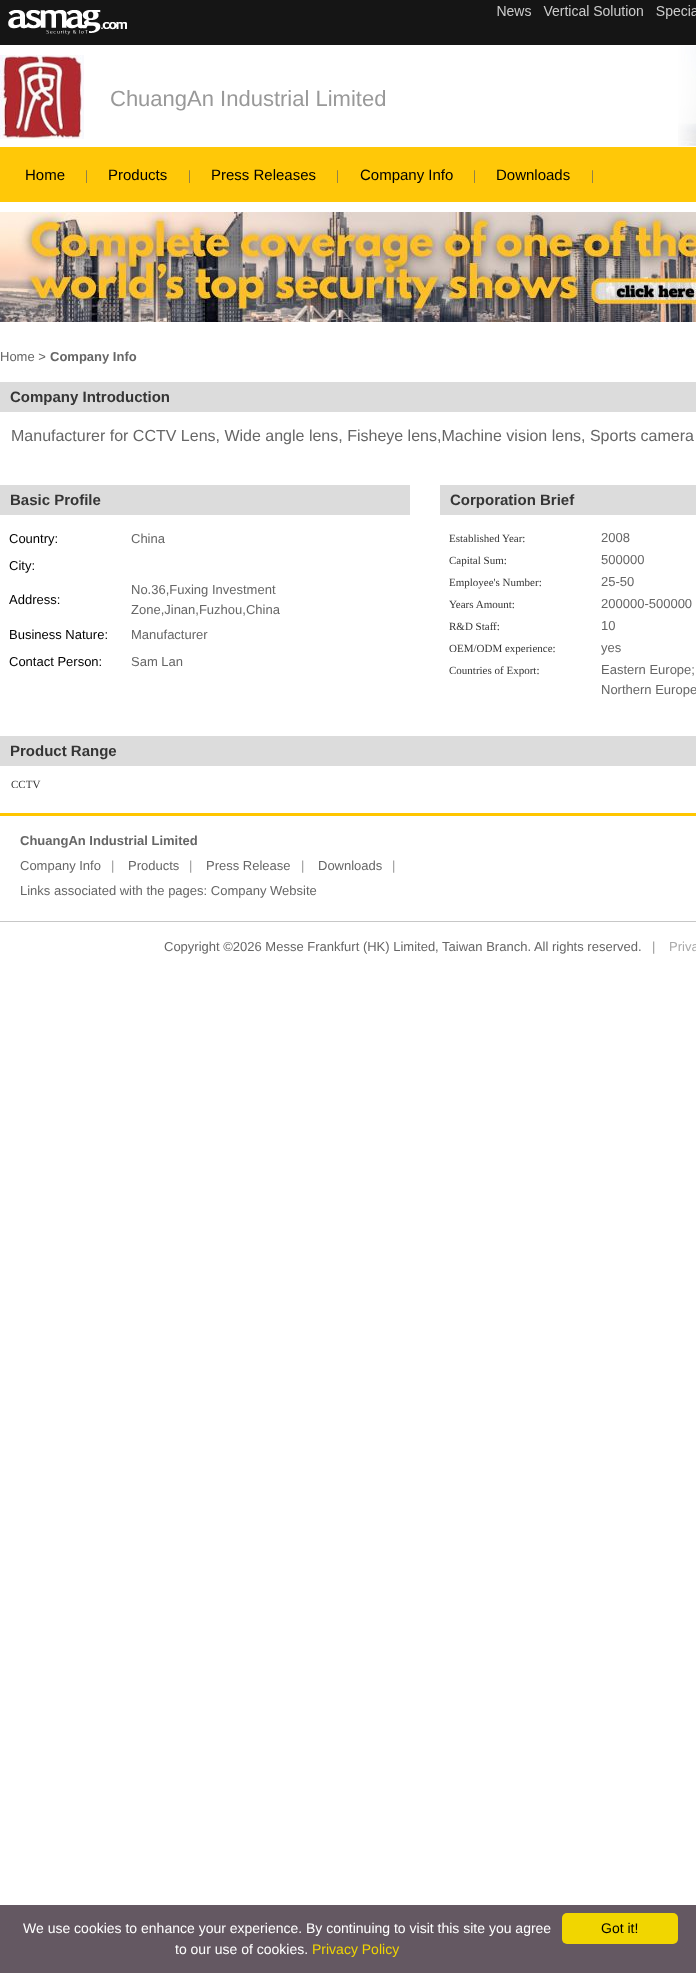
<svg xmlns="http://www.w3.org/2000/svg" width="696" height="1973">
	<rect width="100%" height="100%" fill="#FFFFFF" />
	<rect x="0" y="0" width="696" height="45" fill="#151515" />
	<image x="8" y="10" width="119" height="25" href="assets/img1.png" />
	<image x="497" y="5" width="199" height="14" href="assets/img2.png" />
	<image x="0" y="55" width="84" height="84" href="assets/img3.png" />
	<text x="110" y="106" font-family="Liberation Sans" font-size="22" fill="#999999">ChuangAn Industrial Limited</text>
	<image x="678" y="46" width="18" height="100" href="assets/img4.png" />
	<rect x="0" y="147" width="696" height="55" fill="#FFC808" />
	<text x="25" y="180" font-family="Liberation Sans" font-size="15" fill="#000000">Home</text>
	<text x="85" y="180" font-family="Liberation Serif" font-size="14" fill="#666666">|</text>
	<text x="108" y="180" font-family="Liberation Sans" font-size="15" fill="#000000">Products</text>
	<text x="188" y="180" font-family="Liberation Serif" font-size="14" fill="#666666">|</text>
	<text x="211" y="180" font-family="Liberation Sans" font-size="15" fill="#000000">Press Releases</text>
	<text x="336" y="180" font-family="Liberation Serif" font-size="14" fill="#666666">|</text>
	<text x="360" y="180" font-family="Liberation Sans" font-size="15" fill="#000000">Company Info</text>
	<text x="473" y="180" font-family="Liberation Serif" font-size="14" fill="#666666">|</text>
	<text x="496" y="180" font-family="Liberation Sans" font-size="15" fill="#000000">Downloads</text>
	<text x="591" y="180" font-family="Liberation Serif" font-size="14" fill="#666666">|</text>
	<image x="0" y="212" width="696" height="110" href="assets/img5.png" />
	<text x="0" y="361" font-family="Liberation Sans" font-size="13" fill="#666666">Home &gt;</text>
	<text x="50" y="361" font-family="Liberation Sans" font-size="13" font-weight="700" fill="#666666">Company Info</text>
	<rect x="0" y="382" width="696" height="30" fill="#DCDCDC" />
	<text x="10" y="402" font-family="Liberation Sans" font-size="15" font-weight="700" fill="#353535">Company Introduction</text>
	<text x="11" y="441" font-family="Liberation Sans" font-size="16" fill="#666666">Manufacturer for CCTV Lens, Wide angle lens, Fisheye lens,Machine vision lens, Sports camera</text>
	<rect x="0" y="485" width="410" height="30" fill="#DCDCDC" />
	<text x="10" y="505" font-family="Liberation Sans" font-size="15" font-weight="700" fill="#353535">Basic Profile</text>
	<text x="9" y="543" font-family="Liberation Sans" font-size="13" fill="#000000">Country:</text>
	<text x="131" y="543" font-family="Liberation Sans" font-size="13" fill="#666666">China</text>
	<g font-family="Liberation Sans" font-size="13" fill="#000000">
		<text x="9" y="570">City:</text>
		<text x="9" y="604">Address:</text>
	</g>
	<g font-family="Liberation Sans" font-size="13" fill="#666666">
		<text x="131" y="594">No.36,Fuxing Investment</text>
		<text x="131" y="614">Zone,Jinan,Fuzhou,China</text>
	</g>
	<text x="9" y="639" font-family="Liberation Sans" font-size="13" fill="#000000">Business Nature:</text>
	<text x="131" y="639" font-family="Liberation Sans" font-size="13" fill="#666666">Manufacturer</text>
	<text x="9" y="666" font-family="Liberation Sans" font-size="13" fill="#000000">Contact Person:</text>
	<text x="131" y="666" font-family="Liberation Sans" font-size="13" fill="#666666">Sam Lan</text>
	<rect x="440" y="485" width="256" height="30" fill="#DCDCDC" />
	<text x="450" y="505" font-family="Liberation Sans" font-size="15" font-weight="700" fill="#353535">Corporation Brief</text>
	<text x="449" y="542" font-family="Liberation Serif" font-size="11" fill="#353535">Established Year:</text>
	<text x="601" y="542" font-family="Liberation Sans" font-size="13" fill="#666666">2008</text>
	<text x="449" y="564" font-family="Liberation Serif" font-size="11" fill="#353535">Capital Sum:</text>
	<text x="601" y="564" font-family="Liberation Sans" font-size="13" fill="#666666">500000</text>
	<text x="449" y="586" font-family="Liberation Serif" font-size="11" fill="#353535">Employee's Number:</text>
	<text x="601" y="586" font-family="Liberation Sans" font-size="13" fill="#666666">25-50</text>
	<text x="449" y="608" font-family="Liberation Serif" font-size="11" fill="#353535">Years Amount:</text>
	<text x="601" y="608" font-family="Liberation Sans" font-size="13" fill="#666666">200000-500000</text>
	<text x="449" y="630" font-family="Liberation Serif" font-size="11" fill="#353535">R&amp;D Staff:</text>
	<text x="601" y="630" font-family="Liberation Sans" font-size="13" fill="#666666">10</text>
	<text x="449" y="652" font-family="Liberation Serif" font-size="11" fill="#353535">OEM/ODM experience:</text>
	<text x="601" y="652" font-family="Liberation Sans" font-size="13" fill="#666666">yes</text>
	<text x="449" y="674" font-family="Liberation Serif" font-size="11" fill="#353535">Countries of Export:</text>
	<g font-family="Liberation Sans" font-size="13" fill="#666666">
		<text x="601" y="674">Eastern Europe;</text>
		<text x="601" y="694">Northern Europe</text>
	</g>
	<rect x="0" y="736" width="696" height="30" fill="#DCDCDC" />
	<text x="10" y="756" font-family="Liberation Sans" font-size="15" font-weight="700" fill="#353535">Product Range</text>
	<text x="11" y="788" font-family="Liberation Serif" font-size="11" fill="#353535">CCTV</text>
	<rect x="0" y="813" width="696" height="3" fill="#FFC600" />
	<text x="20" y="845" font-family="Liberation Sans" font-size="13" font-weight="700" fill="#666666">ChuangAn Industrial Limited</text>
	<text x="20" y="870" font-family="Liberation Sans" font-size="13" fill="#666666">Company Info</text>
	<text x="111" y="870" font-family="Liberation Sans" font-size="13" fill="#999999">|</text>
	<text x="128" y="870" font-family="Liberation Sans" font-size="13" fill="#666666">Products</text>
	<text x="189" y="870" font-family="Liberation Sans" font-size="13" fill="#999999">|</text>
	<text x="206" y="870" font-family="Liberation Sans" font-size="13" fill="#666666">Press Release</text>
	<text x="301" y="870" font-family="Liberation Sans" font-size="13" fill="#999999">|</text>
	<text x="318" y="870" font-family="Liberation Sans" font-size="13" fill="#666666">Downloads</text>
	<text x="392" y="870" font-family="Liberation Sans" font-size="13" fill="#999999">|</text>
	<text x="20" y="895" font-family="Liberation Sans" font-size="13" fill="#666666">Links associated with the pages: Company Website</text>
	<rect x="0" y="921" width="696" height="1" fill="#C7C7C7" />
	<text x="164" y="951" font-family="Liberation Sans" font-size="13" fill="#666666">Copyright ©2026 Messe Frankfurt (HK) Limited, Taiwan Branch. All rights reserved.</text>
	<text x="652" y="951" font-family="Liberation Sans" font-size="13" fill="#999999">|</text>
	<text x="669" y="951" font-family="Liberation Sans" font-size="13" fill="#AAAAAA">Priva</text>
	<rect x="0" y="1905" width="696" height="68" fill="#645862" />
	<g font-family="Liberation Sans" font-size="14" fill="#FFFFFF">
		<text x="23" y="1933">We use cookies to enhance your experience. By continuing to visit this site you agree</text>
		<text x="175" y="1954">to our use of cookies.</text>
	</g>
	<text x="312" y="1954" font-family="Liberation Sans" font-size="14" fill="#F1D600">Privacy Policy</text>
	<rect x="562" y="1913" width="116" height="31" rx="5" fill="#F1D600" />
	<text x="601" y="1933" font-family="Liberation Sans" font-size="14" fill="#000000">Got it!</text>
</svg>
